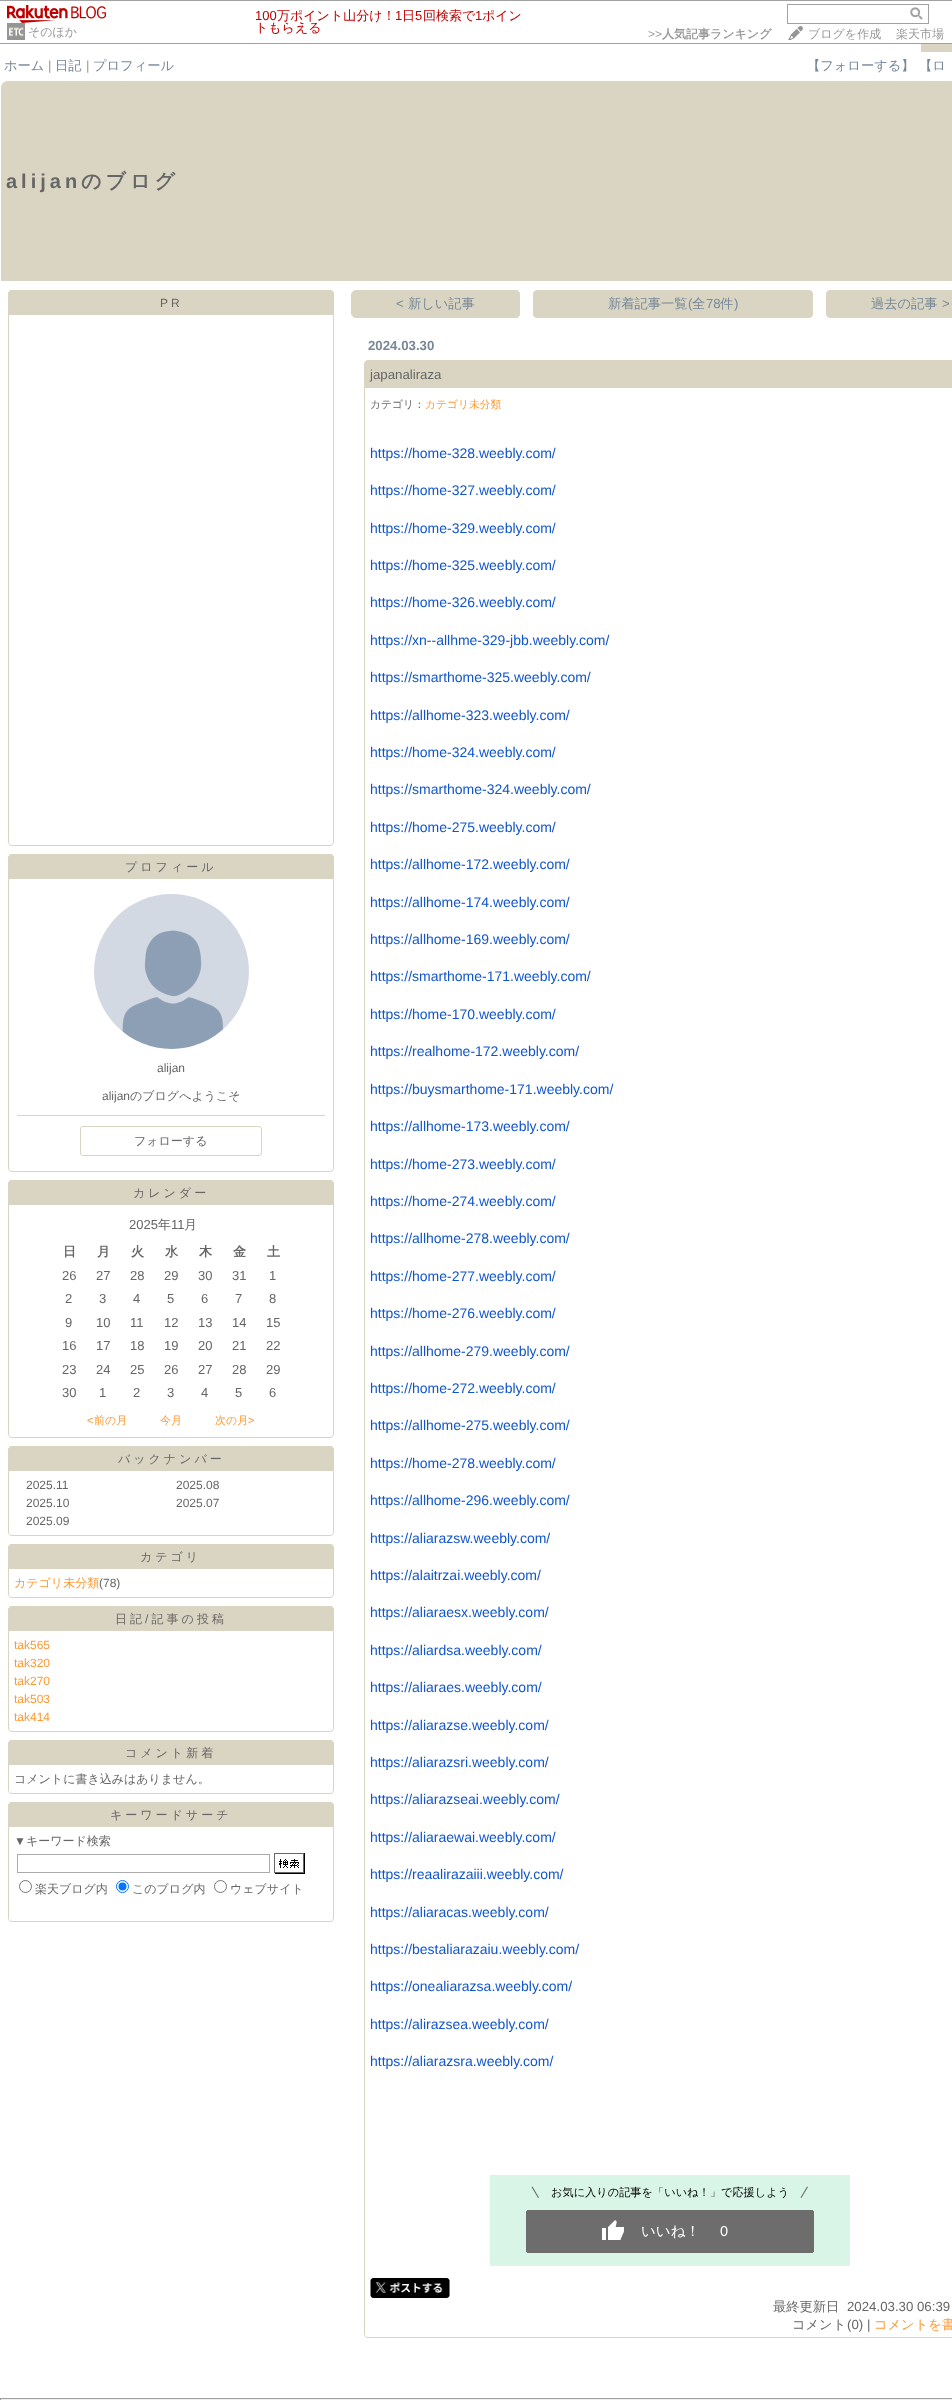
<svg xmlns="http://www.w3.org/2000/svg" width="952" height="2400">
	<rect width="100%" height="100%" fill="#FFFFFF" />
	<rect x="0" y="0" width="952" height="1" fill="#A1A1A1" />
	<rect x="0" y="43" width="952" height="1" fill="#A1A1A1" />
	<image x="7" y="5" width="99" height="18" href="assets/img1.png" />
	<image x="7" y="23" width="18" height="17" href="assets/img2.png" />
	<text x="28" y="36" font-family="WenQuanYi Zen Hei" font-size="12" font-weight="500" fill="#999999">そのほか</text>
	<text x="255" y="20" font-family="Liberation Sans" font-size="13" fill="#BF0000">100</text>
	<text x="277" y="20" font-family="WenQuanYi Zen Hei" font-size="13" font-weight="500" fill="#BF0000">万ポイント山分け！</text>
	<text x="395" y="20" font-family="Liberation Sans" font-size="13" fill="#BF0000">1</text>
	<text x="402" y="20" font-family="WenQuanYi Zen Hei" font-size="13" font-weight="500" fill="#BF0000">日</text>
	<text x="415" y="20" font-family="Liberation Sans" font-size="13" fill="#BF0000">5</text>
	<text x="423" y="20" font-family="WenQuanYi Zen Hei" font-size="13" font-weight="500" fill="#BF0000">回検索で</text>
	<text x="475" y="20" font-family="Liberation Sans" font-size="13" fill="#BF0000">1</text>
	<g font-family="WenQuanYi Zen Hei" font-size="13" font-weight="500" fill="#BF0000">
		<text x="482" y="20">ポイン</text>
		<text x="255" y="32">トもらえる</text>
	</g>
	<rect x="787.5" y="4.5" width="141" height="19" fill="none" stroke="#A1A1A1" />
	<image x="910" y="7" width="13" height="13" href="assets/img3.png" />
	<text x="648" y="38" font-family="Liberation Sans" font-size="12" fill="#999999">&gt;&gt;</text>
	<text x="662" y="38" font-family="WenQuanYi Zen Hei" font-size="12" font-weight="700" fill="#999999">人気記事ランキング</text>
	<image x="788" y="26" width="15" height="14" href="assets/img4.png" />
	<g font-family="WenQuanYi Zen Hei" font-size="12" font-weight="500" fill="#999999">
		<text x="808" y="38">ブログを作成</text>
		<text x="896" y="38">楽天市場</text>
	</g>
	<rect x="921" y="44" width="31" height="8" fill="#DAD5C2" />
	<text x="4" y="70" font-family="WenQuanYi Zen Hei" font-size="13.25" font-weight="500" fill="#778899">ホーム</text>
	<text x="48" y="70" font-family="Liberation Sans" font-size="13.25" fill="#999999">|</text>
	<text x="55" y="70" font-family="WenQuanYi Zen Hei" font-size="13.25" font-weight="500" fill="#778899">日記</text>
	<text x="86" y="70" font-family="Liberation Sans" font-size="13.25" fill="#999999">|</text>
	<g font-family="WenQuanYi Zen Hei" font-size="13.25" font-weight="500" fill="#778899">
		<text x="93" y="70">プロフィール</text>
		<text x="807" y="70">【フォローする】</text>
		<text x="919" y="70">【ロ</text>
	</g>
	<path d="M8 80.5H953C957 80.5 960.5 84 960.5 88V281.5H.5V88C.5 84 4 80.5 8 80.5Z" fill="#DAD5C2" stroke="#FFFFFF" />
	<text x="6" y="188" font-family="Liberation Sans" font-size="20" font-weight="700" letter-spacing="4" fill="#666666">alijan</text>
	<text x="81" y="188" font-family="WenQuanYi Zen Hei" font-size="20" font-weight="700" letter-spacing="4" fill="#666666">のブログ</text>
	<path d="M12 290H330C332 290 334 292 334 294V315H8V294C8 292 10 290 12 290Z" fill="#DAD5C2" />
	<path d="M12 290H330C332 290 334 292 334 294V315H8V294C8 292 10 290 12 290ZM12 291H330C332 291 333 292 333 294V315H9V294C9 292 10 291 12 291Z" fill="#DAD5C2" fill-rule="evenodd" />
	<text x="160" y="307" font-family="Liberation Sans" font-size="12" letter-spacing="3" fill="#666666">PR</text>
	<path d="M8 315H334V842C334 844 332 846 330 846H12C10 846 8 844 8 842ZM9 315H333V842C333 844 332 845 330 845H12C10 845 9 844 9 842Z" fill="#DAD5C2" fill-rule="evenodd" />
	<path d="M12 854H330C332 854 334 856 334 858V879H8V858C8 856 10 854 12 854Z" fill="#DAD5C2" />
	<path d="M12 854H330C332 854 334 856 334 858V879H8V858C8 856 10 854 12 854ZM12 855H330C332 855 333 856 333 858V879H9V858C9 856 10 855 12 855Z" fill="#DAD5C2" fill-rule="evenodd" />
	<text x="125" y="871" font-family="WenQuanYi Zen Hei" font-size="12" font-weight="500" letter-spacing="3" fill="#666666">プロフィール</text>
	<path d="M8 879H334V1168C334 1170 332 1172 330 1172H12C10 1172 8 1170 8 1168ZM9 879H333V1168C333 1170 332 1171 330 1171H12C10 1171 9 1170 9 1168Z" fill="#DAD5C2" fill-rule="evenodd" />
	<image x="94" y="894" width="155" height="155" href="assets/img5.png" />
	<text x="157" y="1072" font-family="Liberation Sans" font-size="12" fill="#666666">alijan</text>
	<rect x="17" y="1115" width="308" height="1" fill="#DAD5C2" />
	<text x="102" y="1100" font-family="Liberation Sans" font-size="12" fill="#666666">alijan</text>
	<text x="130" y="1100" font-family="WenQuanYi Zen Hei" font-size="12" font-weight="500" fill="#666666">のブログへようこそ</text>
	<rect x="80.5" y="1126.5" width="181" height="29" rx="2.5" fill="none" stroke="#DAD5C2" />
	<text x="134" y="1145" font-family="WenQuanYi Zen Hei" font-size="12" font-weight="500" fill="#666666">フォローする</text>
	<path d="M12 1180H330C332 1180 334 1182 334 1184V1205H8V1184C8 1182 10 1180 12 1180Z" fill="#DAD5C2" />
	<path d="M12 1180H330C332 1180 334 1182 334 1184V1205H8V1184C8 1182 10 1180 12 1180ZM12 1181H330C332 1181 333 1182 333 1184V1205H9V1184C9 1182 10 1181 12 1181Z" fill="#DAD5C2" fill-rule="evenodd" />
	<text x="133" y="1197" font-family="WenQuanYi Zen Hei" font-size="12" font-weight="500" letter-spacing="3" fill="#666666">カレンダー</text>
	<path d="M8 1205H334V1434C334 1436 332 1438 330 1438H12C10 1438 8 1436 8 1434ZM9 1205H333V1434C333 1436 332 1437 330 1437H12C10 1437 9 1436 9 1434Z" fill="#DAD5C2" fill-rule="evenodd" />
	<text x="129" y="1229" font-family="Liberation Sans" font-size="13" fill="#666666">2025</text>
	<text x="158" y="1229" font-family="WenQuanYi Zen Hei" font-size="13" font-weight="500" fill="#666666">年</text>
	<text x="171" y="1229" font-family="Liberation Sans" font-size="13" fill="#666666">11</text>
	<text x="184" y="1229" font-family="WenQuanYi Zen Hei" font-size="13" font-weight="500" fill="#666666">月</text>
	<g font-family="WenQuanYi Zen Hei" font-size="13" font-weight="700" fill="#666666">
		<text x="63" y="1256">日</text>
		<text x="97" y="1256">月</text>
		<text x="131" y="1256">火</text>
		<text x="165" y="1256">水</text>
		<text x="199" y="1256">木</text>
		<text x="233" y="1256">金</text>
		<text x="267" y="1256">土</text>
	</g>
	<g font-family="Liberation Sans" font-size="13" fill="#666666">
		<text x="62" y="1280">26</text>
		<text x="96" y="1280">27</text>
		<text x="130" y="1280">28</text>
		<text x="164" y="1280">29</text>
		<text x="198" y="1280">30</text>
		<text x="232" y="1280">31</text>
		<text x="269" y="1280">1</text>
		<text x="65" y="1303">2</text>
		<text x="99" y="1303">3</text>
		<text x="133" y="1303">4</text>
		<text x="167" y="1303">5</text>
		<text x="201" y="1303">6</text>
		<text x="235" y="1303">7</text>
		<text x="269" y="1303">8</text>
		<text x="65" y="1327">9</text>
		<text x="96" y="1327">10</text>
		<text x="130" y="1327">11</text>
		<text x="164" y="1327">12</text>
		<text x="198" y="1327">13</text>
		<text x="232" y="1327">14</text>
		<text x="266" y="1327">15</text>
		<text x="62" y="1350">16</text>
		<text x="96" y="1350">17</text>
		<text x="130" y="1350">18</text>
		<text x="164" y="1350">19</text>
		<text x="198" y="1350">20</text>
		<text x="232" y="1350">21</text>
		<text x="266" y="1350">22</text>
		<text x="62" y="1374">23</text>
		<text x="96" y="1374">24</text>
		<text x="130" y="1374">25</text>
		<text x="164" y="1374">26</text>
		<text x="198" y="1374">27</text>
		<text x="232" y="1374">28</text>
		<text x="266" y="1374">29</text>
		<text x="62" y="1397">30</text>
		<text x="99" y="1397">1</text>
		<text x="133" y="1397">2</text>
		<text x="167" y="1397">3</text>
		<text x="201" y="1397">4</text>
		<text x="235" y="1397">5</text>
		<text x="269" y="1397">6</text>
	</g>
	<text x="87" y="1424" font-family="Liberation Sans" font-size="11" fill="#FF9933">&lt;</text>
	<g font-family="WenQuanYi Zen Hei" font-size="11" font-weight="500" fill="#FF9933">
		<text x="94" y="1424">前の月</text>
		<text x="160" y="1424">今月</text>
		<text x="215" y="1424">次の月</text>
	</g>
	<text x="248" y="1424" font-family="Liberation Sans" font-size="11" fill="#FF9933">&gt;</text>
	<path d="M12 1446H330C332 1446 334 1448 334 1450V1471H8V1450C8 1448 10 1446 12 1446Z" fill="#DAD5C2" />
	<path d="M12 1446H330C332 1446 334 1448 334 1450V1471H8V1450C8 1448 10 1446 12 1446ZM12 1447H330C332 1447 333 1448 333 1450V1471H9V1450C9 1448 10 1447 12 1447Z" fill="#DAD5C2" fill-rule="evenodd" />
	<text x="118" y="1463" font-family="WenQuanYi Zen Hei" font-size="12" font-weight="500" letter-spacing="3" fill="#666666">バックナンバー</text>
	<path d="M8 1471H334V1532C334 1534 332 1536 330 1536H12C10 1536 8 1534 8 1532ZM9 1471H333V1532C333 1534 332 1535 330 1535H12C10 1535 9 1534 9 1532Z" fill="#DAD5C2" fill-rule="evenodd" />
	<g font-family="Liberation Sans" font-size="12" fill="#666666">
		<text x="26" y="1489">2025.11</text>
		<text x="26" y="1507">2025.10</text>
		<text x="26" y="1525">2025.09</text>
		<text x="176" y="1489">2025.08</text>
		<text x="176" y="1507">2025.07</text>
	</g>
	<path d="M12 1544H330C332 1544 334 1546 334 1548V1569H8V1548C8 1546 10 1544 12 1544Z" fill="#DAD5C2" />
	<path d="M12 1544H330C332 1544 334 1546 334 1548V1569H8V1548C8 1546 10 1544 12 1544ZM12 1545H330C332 1545 333 1546 333 1548V1569H9V1548C9 1546 10 1545 12 1545Z" fill="#DAD5C2" fill-rule="evenodd" />
	<text x="140" y="1561" font-family="WenQuanYi Zen Hei" font-size="12" font-weight="500" letter-spacing="3" fill="#666666">カテゴリ</text>
	<path d="M8 1569H334V1594C334 1596 332 1598 330 1598H12C10 1598 8 1596 8 1594ZM9 1569H333V1594C333 1596 332 1597 330 1597H12C10 1597 9 1596 9 1594Z" fill="#DAD5C2" fill-rule="evenodd" />
	<text x="14" y="1587" font-family="WenQuanYi Zen Hei" font-size="12" font-weight="500" fill="#FF9933">カテゴリ未分類</text>
	<text x="99" y="1587" font-family="Liberation Sans" font-size="12" fill="#666666">(78)</text>
	<path d="M12 1606H330C332 1606 334 1608 334 1610V1631H8V1610C8 1608 10 1606 12 1606Z" fill="#DAD5C2" />
	<path d="M12 1606H330C332 1606 334 1608 334 1610V1631H8V1610C8 1608 10 1606 12 1606ZM12 1607H330C332 1607 333 1608 333 1610V1631H9V1610C9 1608 10 1607 12 1607Z" fill="#DAD5C2" fill-rule="evenodd" />
	<text x="115" y="1623" font-family="WenQuanYi Zen Hei" font-size="12" font-weight="500" letter-spacing="3" fill="#666666">日記 記事の投稿</text>
	<text x="145" y="1623" font-family="Liberation Sans" font-size="12" letter-spacing="3" fill="#666666">/</text>
	<path d="M8 1631H334V1728C334 1730 332 1732 330 1732H12C10 1732 8 1730 8 1728ZM9 1631H333V1728C333 1730 332 1731 330 1731H12C10 1731 9 1730 9 1728Z" fill="#DAD5C2" fill-rule="evenodd" />
	<g font-family="Liberation Sans" font-size="12" fill="#FF9933">
		<text x="14" y="1649">tak565</text>
		<text x="14" y="1667">tak320</text>
		<text x="14" y="1685">tak270</text>
		<text x="14" y="1703">tak503</text>
		<text x="14" y="1721">tak414</text>
	</g>
	<path d="M12 1740H330C332 1740 334 1742 334 1744V1765H8V1744C8 1742 10 1740 12 1740Z" fill="#DAD5C2" />
	<path d="M12 1740H330C332 1740 334 1742 334 1744V1765H8V1744C8 1742 10 1740 12 1740ZM12 1741H330C332 1741 333 1742 333 1744V1765H9V1744C9 1742 10 1741 12 1741Z" fill="#DAD5C2" fill-rule="evenodd" />
	<text x="125" y="1757" font-family="WenQuanYi Zen Hei" font-size="12" font-weight="500" letter-spacing="3" fill="#666666">コメント新着</text>
	<path d="M8 1765H334V1790C334 1792 332 1794 330 1794H12C10 1794 8 1792 8 1790ZM9 1765H333V1790C333 1792 332 1793 330 1793H12C10 1793 9 1792 9 1790Z" fill="#DAD5C2" fill-rule="evenodd" />
	<text x="14" y="1783" font-family="WenQuanYi Zen Hei" font-size="12" font-weight="500" fill="#666666">コメントに書き込みはありません。</text>
	<path d="M12 1802H330C332 1802 334 1804 334 1806V1827H8V1806C8 1804 10 1802 12 1802Z" fill="#DAD5C2" />
	<path d="M12 1802H330C332 1802 334 1804 334 1806V1827H8V1806C8 1804 10 1802 12 1802ZM12 1803H330C332 1803 333 1804 333 1806V1827H9V1806C9 1804 10 1803 12 1803Z" fill="#DAD5C2" fill-rule="evenodd" />
	<text x="110" y="1819" font-family="WenQuanYi Zen Hei" font-size="12" font-weight="500" letter-spacing="3" fill="#666666">キーワードサーチ</text>
	<path d="M8 1827H334V1918C334 1920 332 1922 330 1922H12C10 1922 8 1920 8 1918ZM9 1827H333V1918C333 1920 332 1921 330 1921H12C10 1921 9 1920 9 1918Z" fill="#DAD5C2" fill-rule="evenodd" />
	<text x="14" y="1845" font-family="Liberation Sans" font-size="12" fill="#666666">▼</text>
	<text x="26" y="1845" font-family="WenQuanYi Zen Hei" font-size="12" font-weight="500" fill="#666666">キーワード検索</text>
	<rect x="17.5" y="1854.5" width="252" height="18" fill="none" stroke="#AAAAAA" />
	<image x="274" y="1853" width="31" height="21" href="assets/img6.png" />
	<circle cx="25.5" cy="1886.5" r="6" fill="none" stroke="#767676" />
	<text x="35" y="1893" font-family="WenQuanYi Zen Hei" font-size="12" font-weight="500" fill="#666666">楽天ブログ内</text>
	<circle cx="122.5" cy="1886.5" r="6" fill="none" stroke="#0075FF" />
	<circle cx="122.5" cy="1886.5" r="4" fill="#0075FF" />
	<text x="132" y="1893" font-family="WenQuanYi Zen Hei" font-size="12" font-weight="500" fill="#666666">このブログ内</text>
	<circle cx="220.5" cy="1886.5" r="6" fill="none" stroke="#767676" />
	<text x="230" y="1893" font-family="WenQuanYi Zen Hei" font-size="12" font-weight="500" fill="#666666">ウェブサイト</text>
	<path d="M356 290.5H516C518 290.5 519.5 292 519.5 294V314C519.5 316 518 317.5 516 317.5H356C353.5 317.5 351.5 315.5 351.5 313V295C351.5 292.5 353.5 290.5 356 290.5Z" fill="#DAD5C2" stroke="#DAD5C2" />
	<text x="396" y="308" font-family="Liberation Sans" font-size="13.25" fill="#778899">&lt;</text>
	<text x="408" y="308" font-family="WenQuanYi Zen Hei" font-size="13.25" font-weight="500" fill="#778899">新しい記事</text>
	<rect x="533.5" y="290.5" width="279" height="27" rx="3.5" fill="#DAD5C2" stroke="#DAD5C2" />
	<text x="608" y="308" font-family="WenQuanYi Zen Hei" font-size="13.25" font-weight="500" fill="#778899">新着記事一覧</text>
	<text x="688" y="308" font-family="Liberation Sans" font-size="13.25" fill="#778899">(</text>
	<text x="692" y="308" font-family="WenQuanYi Zen Hei" font-size="13.25" font-weight="500" fill="#778899">全</text>
	<text x="706" y="308" font-family="Liberation Sans" font-size="13.25" fill="#778899">78</text>
	<text x="720" y="308" font-family="WenQuanYi Zen Hei" font-size="13.25" font-weight="500" fill="#778899">件</text>
	<text x="734" y="308" font-family="Liberation Sans" font-size="13.25" fill="#778899">)</text>
	<path d="M830 290.5H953C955.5 290.5 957.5 292.5 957.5 295V313C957.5 315.5 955.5 317.5 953 317.5H830C828 317.5 826.5 316 826.5 314V294C826.5 292 828 290.5 830 290.5Z" fill="#DAD5C2" stroke="#DAD5C2" />
	<text x="871" y="308" font-family="WenQuanYi Zen Hei" font-size="13.25" font-weight="500" fill="#778899">過去の記事</text>
	<text x="942" y="308" font-family="Liberation Sans" font-size="13.25" fill="#778899">&gt;</text>
	<text x="368" y="350" font-family="Liberation Sans" font-size="13.25" font-weight="700" fill="#778899">2024.03.30</text>
	<path d="M368 360.5H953C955 360.5 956.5 362 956.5 364V387.5H364.5V364C364.5 362 366 360.5 368 360.5Z" fill="#DAD5C2" stroke="#DAD5C2" />
	<text x="370" y="379" font-family="Liberation Sans" font-size="13.25" fill="#666666">japanaliraza</text>
	<path d="M364 388H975V2334C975 2336 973 2338 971 2338H368C366 2338 364 2336 364 2334ZM365 388H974V2334C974 2336 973 2337 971 2337H368C366 2337 365 2336 365 2334Z" fill="#DAD5C2" fill-rule="evenodd" />
	<text x="370" y="408" font-family="WenQuanYi Zen Hei" font-size="10.75" font-weight="500" fill="#666666">カテゴリ：</text>
	<text x="425" y="408" font-family="WenQuanYi Zen Hei" font-size="10.75" font-weight="500" fill="#FF9933">カテゴリ未分類</text>
	<g font-family="Liberation Sans" font-size="14" fill="#1155CC">
		<text x="370" y="458">https://home-328.weebly.com/</text>
		<text x="370" y="495">https://home-327.weebly.com/</text>
		<text x="370" y="533">https://home-329.weebly.com/</text>
		<text x="370" y="570">https://home-325.weebly.com/</text>
		<text x="370" y="607">https://home-326.weebly.com/</text>
		<text x="370" y="645">https://xn--allhme-329-jbb.weebly.com/</text>
		<text x="370" y="682">https://smarthome-325.weebly.com/</text>
		<text x="370" y="720">https://allhome-323.weebly.com/</text>
		<text x="370" y="757">https://home-324.weebly.com/</text>
		<text x="370" y="794">https://smarthome-324.weebly.com/</text>
		<text x="370" y="832">https://home-275.weebly.com/</text>
		<text x="370" y="869">https://allhome-172.weebly.com/</text>
		<text x="370" y="907">https://allhome-174.weebly.com/</text>
		<text x="370" y="944">https://allhome-169.weebly.com/</text>
		<text x="370" y="981">https://smarthome-171.weebly.com/</text>
		<text x="370" y="1019">https://home-170.weebly.com/</text>
		<text x="370" y="1056">https://realhome-172.weebly.com/</text>
		<text x="370" y="1094">https://buysmarthome-171.weebly.com/</text>
		<text x="370" y="1131">https://allhome-173.weebly.com/</text>
		<text x="370" y="1169">https://home-273.weebly.com/</text>
		<text x="370" y="1206">https://home-274.weebly.com/</text>
		<text x="370" y="1243">https://allhome-278.weebly.com/</text>
		<text x="370" y="1281">https://home-277.weebly.com/</text>
		<text x="370" y="1318">https://home-276.weebly.com/</text>
		<text x="370" y="1356">https://allhome-279.weebly.com/</text>
		<text x="370" y="1393">https://home-272.weebly.com/</text>
		<text x="370" y="1430">https://allhome-275.weebly.com/</text>
		<text x="370" y="1468">https://home-278.weebly.com/</text>
		<text x="370" y="1505">https://allhome-296.weebly.com/</text>
		<text x="370" y="1543">https://aliarazsw.weebly.com/</text>
		<text x="370" y="1580">https://alaitrzai.weebly.com/</text>
		<text x="370" y="1617">https://aliaraesx.weebly.com/</text>
		<text x="370" y="1655">https://aliardsa.weebly.com/</text>
		<text x="370" y="1692">https://aliaraes.weebly.com/</text>
		<text x="370" y="1730">https://aliarazse.weebly.com/</text>
		<text x="370" y="1767">https://aliarazsri.weebly.com/</text>
		<text x="370" y="1804">https://aliarazseai.weebly.com/</text>
		<text x="370" y="1842">https://aliaraewai.weebly.com/</text>
		<text x="370" y="1879">https://reaalirazaiii.weebly.com/</text>
		<text x="370" y="1917">https://aliaracas.weebly.com/</text>
		<text x="370" y="1954">https://bestaliarazaiu.weebly.com/</text>
		<text x="370" y="1991">https://onealiarazsa.weebly.com/</text>
		<text x="370" y="2029">https://alirazsea.weebly.com/</text>
		<text x="370" y="2066">https://aliarazsra.weebly.com/</text>
	</g>
	<rect x="490" y="2175" width="360" height="91" fill="#D9F5E8" />
	<path d="M531.5 2187L532.5 2186.5L539 2197.5L538 2198Z" fill="#707070" />
	<text x="551" y="2196" font-family="WenQuanYi Zen Hei" font-size="11.2" font-weight="500" fill="#000000">お気に入りの記事を「いいね！」で応援しよう</text>
	<path d="M807 2186.5L808 2187L801.5 2198L800.5 2197.5Z" fill="#707070" />
	<rect x="526.5" y="2210.5" width="287" height="42" rx="1.5" fill="#6D6D6D" stroke="#6D6D6D" />
	<image x="602" y="2220" width="22" height="20" href="assets/img7.png" />
	<text x="641" y="2236" font-family="WenQuanYi Zen Hei" font-size="14.5" font-weight="500" fill="#FFFFFF">いいね！</text>
	<text x="720" y="2236" font-family="Liberation Sans" font-size="14.5" fill="#FFFFFF">0</text>
	<image x="370" y="2278" width="80" height="20" href="assets/img8.png" />
	<text x="773" y="2311" font-family="WenQuanYi Zen Hei" font-size="13.25" font-weight="500" fill="#666666">最終更新日</text>
	<text x="847" y="2311" font-family="Liberation Sans" font-size="13.25" fill="#666666">2024.03.30 06:39</text>
	<text x="792" y="2329" font-family="WenQuanYi Zen Hei" font-size="13.25" font-weight="500" fill="#666666">コメント</text>
	<text x="847" y="2329" font-family="Liberation Sans" font-size="13.25" fill="#666666">(0) |</text>
	<text x="874" y="2329" font-family="WenQuanYi Zen Hei" font-size="13.25" font-weight="500" fill="#FF9933">コメントを書</text>
	<rect x="0" y="2398" width="952" height="1" fill="#9F9F9F" />
	<rect x="0" y="2399" width="952" height="1" fill="#EEEEEE" />
	<rect x="0" y="2398" width="1" height="2" fill="#9F9F9F" />
</svg>
